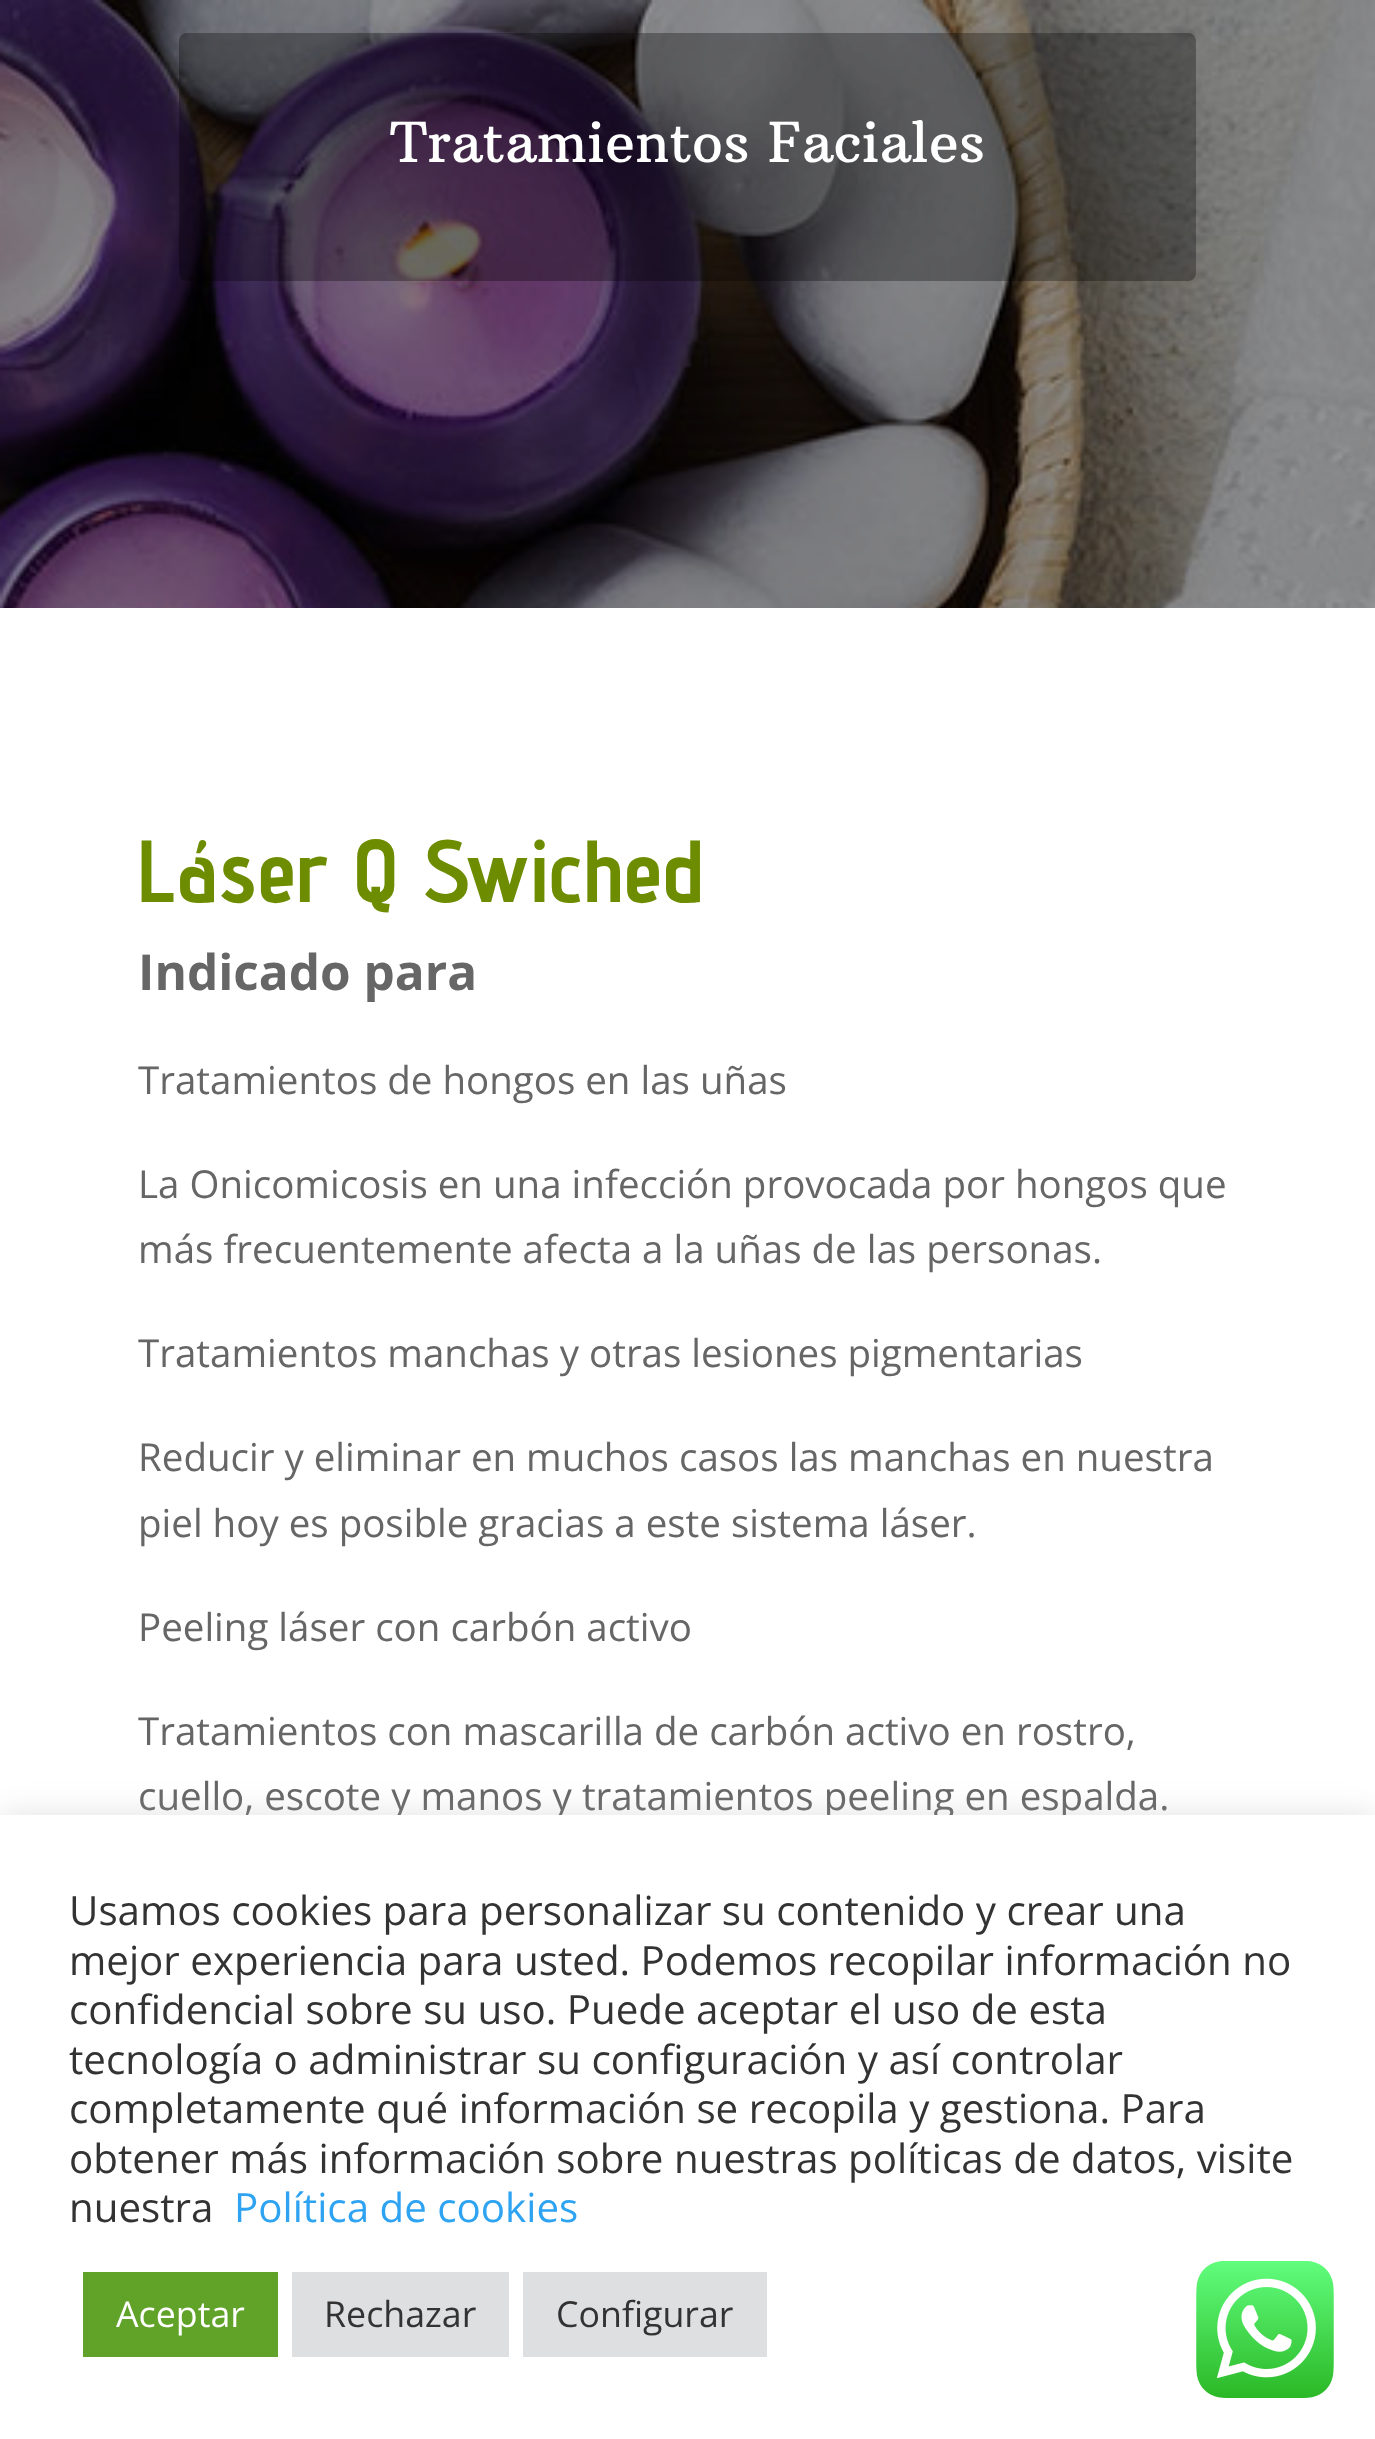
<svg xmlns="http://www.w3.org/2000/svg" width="1375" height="2439">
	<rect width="100%" height="100%" fill="#FFFFFF" />
	<image x="0" y="0" width="1375" height="608" href="assets/img1.png" />
	<rect x="179" y="33" width="1017" height="248" rx="8" fill="#000000" fill-opacity="0.3" />
	<text x="390" y="162" font-family="Arbutus Slab" font-size="55" fill="#FFFFFF">Tratamientos Faciales</text>
	<text x="138" y="902" font-family="Advent Pro" font-size="88" font-weight="700" fill="#6D8C00">Láser Q Swiched</text>
	<text x="138" y="990" font-family="Open Sans" font-size="49.5" font-weight="700" fill="#666666">Indicado para</text>
	<g font-family="Open Sans" font-size="38.5" fill="#666666">
		<text x="138" y="1094">Tratamientos de hongos en las uñas</text>
		<text x="138" y="1198">La Onicomicosis en una infección provocada por hongos que</text>
		<text x="138" y="1263">más frecuentemente afecta a la uñas de las personas.</text>
		<text x="138" y="1367">Tratamientos manchas y otras lesiones pigmentarias</text>
		<text x="138" y="1471">Reducir y eliminar en muchos casos las manchas en nuestra</text>
		<text x="138" y="1537">piel hoy es posible gracias a este sistema láser.</text>
		<text x="138" y="1641">Peeling láser con carbón activo</text>
		<text x="138" y="1745">Tratamientos con mascarilla de carbón activo en rostro,</text>
		<text x="138" y="1810">cuello, escote y manos y tratamientos peeling en espalda.</text>
	</g>
	<rect x="0" y="1812" width="1375" height="625" fill="#ACABAB" fill-opacity="0.3" filter="blur(14px)" />
	<rect x="0" y="1815" width="1375" height="624" fill="#FFFFFF" />
	<g font-family="Open Sans" font-size="40.3" fill="#333333">
		<text x="69" y="1925">Usamos cookies para personalizar su contenido y crear una</text>
		<text x="69" y="1975">mejor experiencia para usted. Podemos recopilar información no</text>
		<text x="69" y="2024">confidencial sobre su uso. Puede aceptar el uso de esta</text>
		<text x="69" y="2074">tecnología o administrar su configuración y así controlar</text>
		<text x="69" y="2123">completamente qué información se recopila y gestiona. Para</text>
		<text x="69" y="2173">obtener más información sobre nuestras políticas de datos, visite</text>
		<text x="69" y="2222">nuestra</text>
	</g>
	<text x="234" y="2222" font-family="Open Sans" font-size="40.3" fill="#2EA3F2">Política de cookies</text>
	<rect x="83" y="2272" width="195" height="85" fill="#61A229" />
	<text x="116" y="2327" font-family="Open Sans" font-size="35.75" fill="#FFFFFF">Aceptar</text>
	<rect x="292" y="2272" width="217" height="85" fill="#DEDFE0" />
	<text x="324" y="2327" font-family="Open Sans" font-size="35.75" fill="#333333">Rechazar</text>
	<rect x="523" y="2272" width="244" height="85" fill="#DEDFE0" />
	<text x="556" y="2327" font-family="Open Sans" font-size="35.75" fill="#333333">Configurar</text>
	<image x="1196" y="2261" width="138" height="137" href="assets/img2.png" />
</svg>
